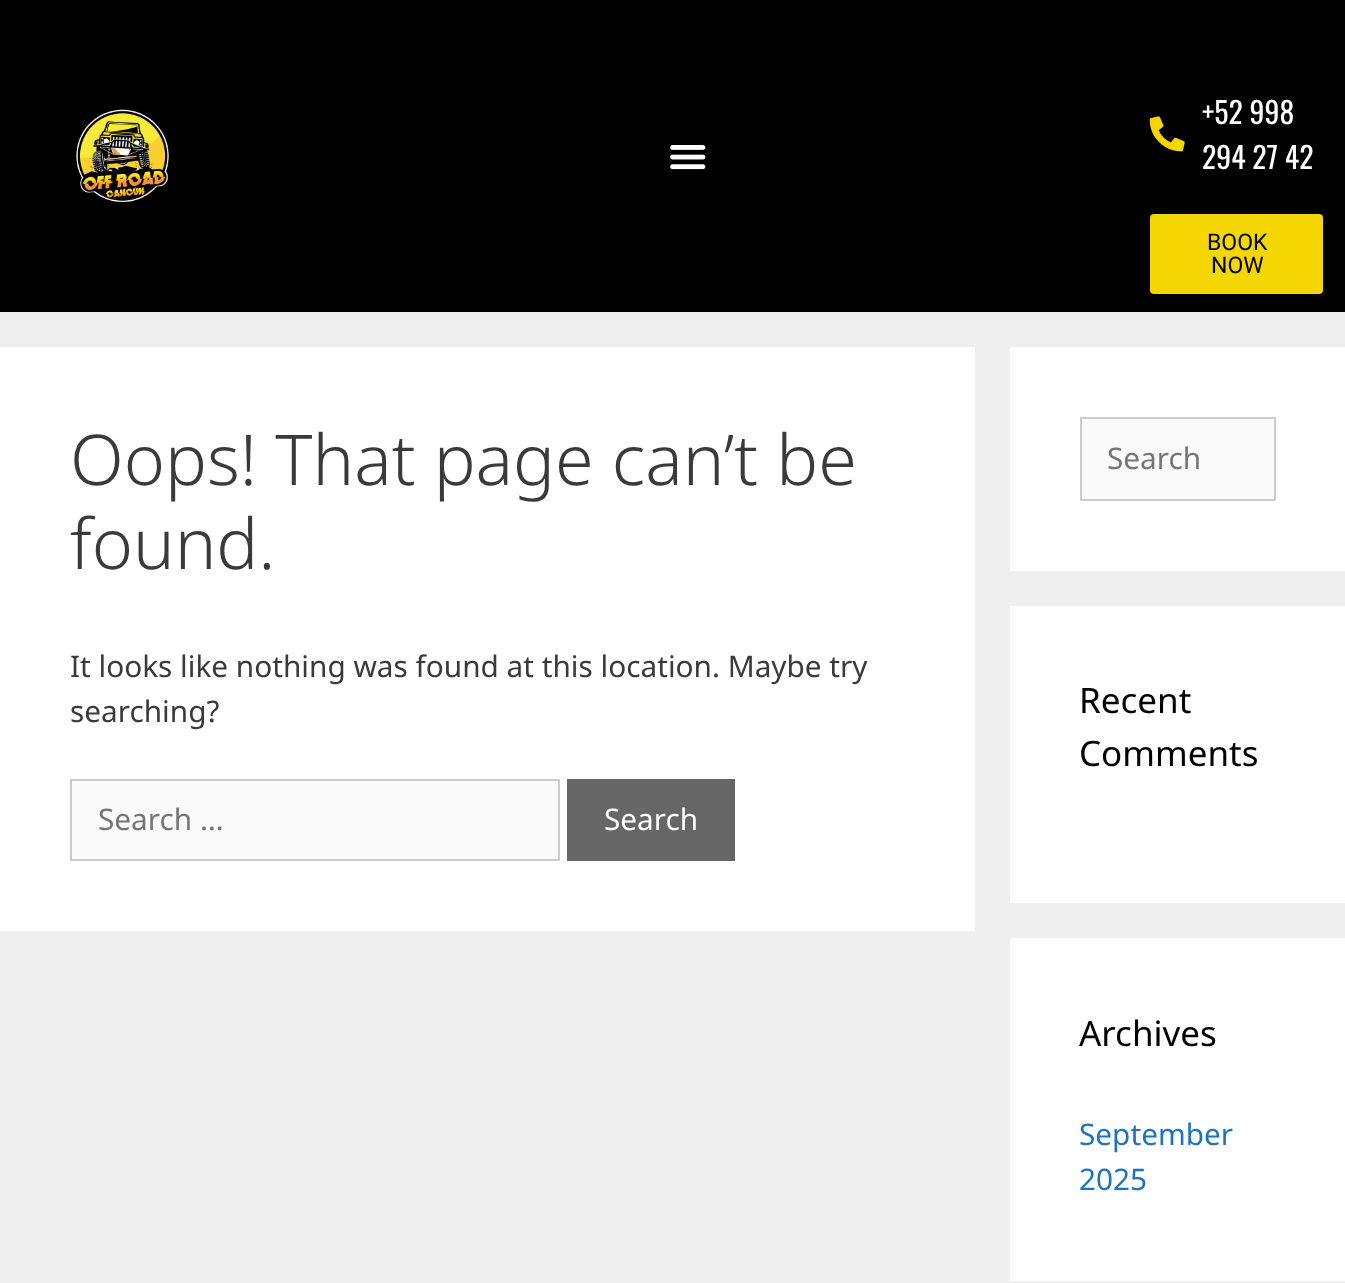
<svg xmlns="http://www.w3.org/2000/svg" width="1345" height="1283">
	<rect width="100%" height="100%" fill="#EFEFEF" />
	<rect x="0" y="0" width="1345" height="312" fill="#000000" />
	<image x="76" y="109" width="93" height="93" href="assets/img1.png" />
	<image x="670" y="145" width="36" height="25" href="assets/img2.png" />
	<image x="1149" y="116" width="36" height="36" href="assets/img3.png" />
	<g font-family="Oswald" font-size="29.75" fill="#FFFFFF">
		<text x="1202" y="124">+52 998</text>
		<text x="1202" y="169">294 27 42</text>
	</g>
	<rect x="1150" y="214" width="173" height="80" rx="4" fill="#F4D603" />
	<g font-family="Roboto" font-size="23" fill="#000000">
		<text x="1207" y="250">BOOK</text>
		<text x="1211" y="273">NOW</text>
	</g>
	<rect x="0" y="347" width="975" height="584" fill="#FFFFFF" />
	<g font-family="Noto Sans" font-size="70" font-weight="300" fill="#3A3A3A">
		<text x="70" y="485">Oops! That page can’t be</text>
		<text x="70" y="569">found.</text>
	</g>
	<g font-family="Noto Sans" font-size="29.75" fill="#3A3A3A">
		<text x="70" y="677">It looks like nothing was found at this location. Maybe try</text>
		<text x="70" y="722">searching?</text>
	</g>
	<rect x="71" y="780" width="488" height="80" fill="#FAFAFA" stroke="#CCCCCC" stroke-width="2" />
	<text x="98" y="830" font-family="Noto Sans" font-size="29.75" fill="#757575">Search …</text>
	<rect x="567" y="779" width="168" height="82" fill="#666666" />
	<text x="604" y="830" font-family="Noto Sans" font-size="29.75" fill="#FFFFFF">Search</text>
	<rect x="1010" y="347" width="335" height="224" fill="#FFFFFF" />
	<rect x="1081" y="418" width="194" height="82" fill="#FAFAFA" stroke="#CCCCCC" stroke-width="2" />
	<text x="1107" y="469" font-family="Noto Sans" font-size="29.75" fill="#757575">Search</text>
	<rect x="1010" y="606" width="335" height="297" fill="#FFFFFF" />
	<g font-family="Noto Sans" font-size="35" fill="#000000">
		<text x="1079" y="713">Recent</text>
		<text x="1079" y="766">Comments</text>
	</g>
	<rect x="1010" y="938" width="335" height="343" fill="#FFFFFF" />
	<text x="1079" y="1046" font-family="Noto Sans" font-size="35" fill="#000000">Archives</text>
	<g font-family="Noto Sans" font-size="29.75" fill="#1E73BE">
		<text x="1079" y="1145">September</text>
		<text x="1079" y="1190">2025</text>
	</g>
</svg>
